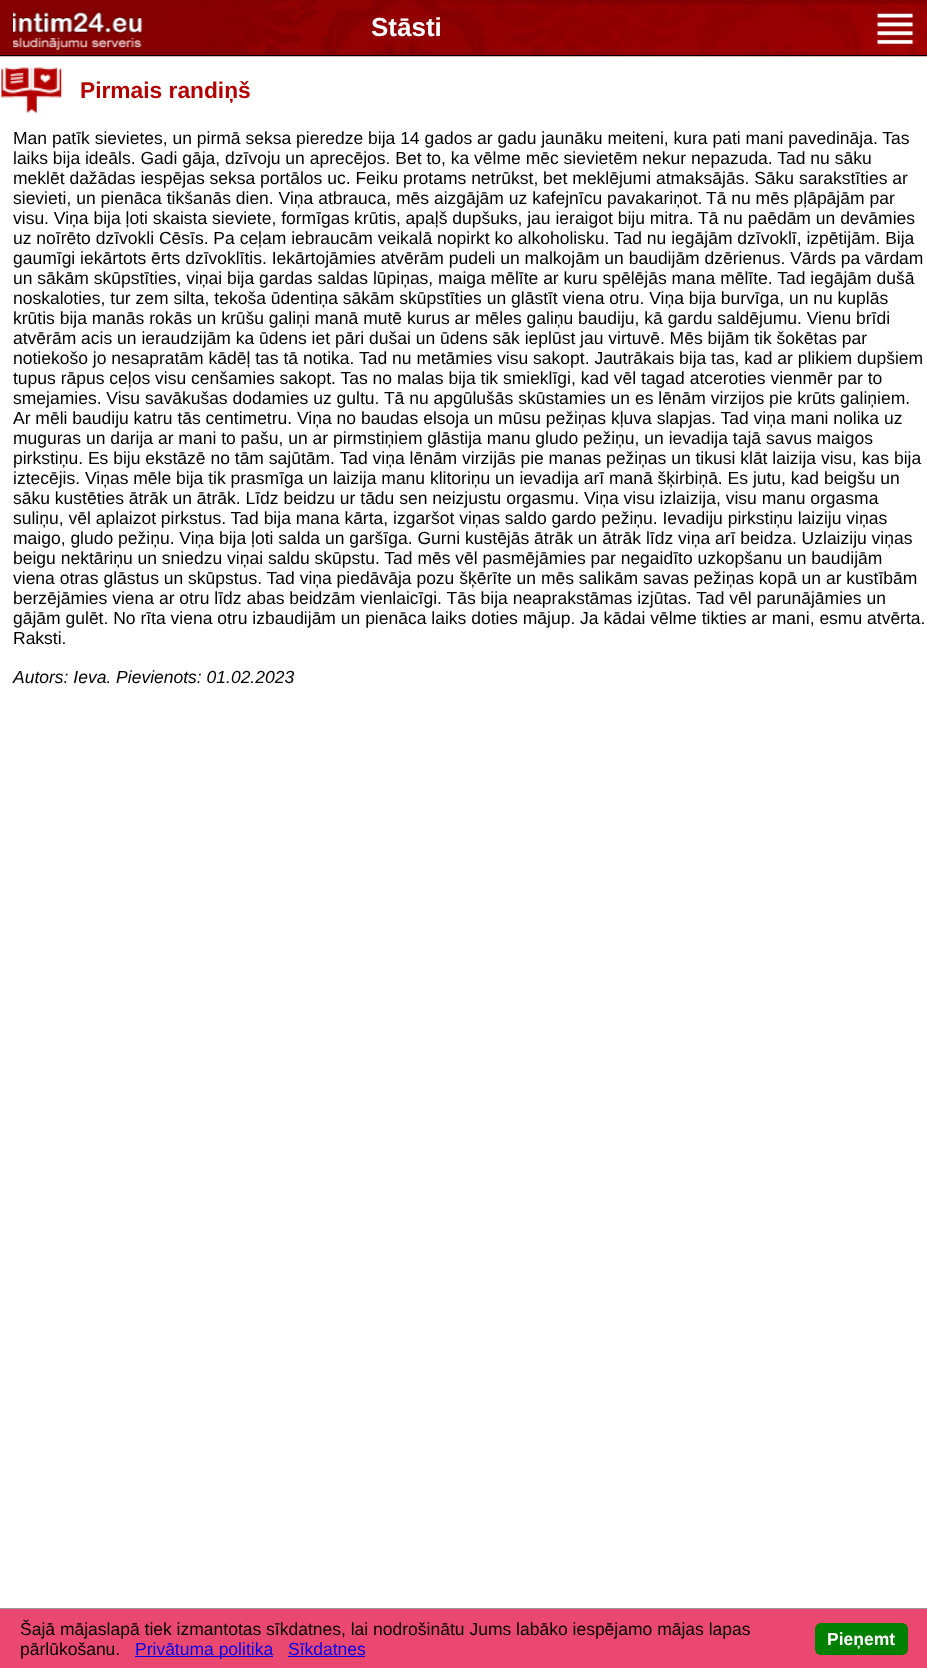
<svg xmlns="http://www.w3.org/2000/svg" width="927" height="1668">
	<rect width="100%" height="100%" fill="#FFFFFF" />
	<image x="0" y="0" width="927" height="57" href="assets/img1.png" />
	<rect x="0" y="55" width="927" height="1" fill="#000000" />
	<image x="13" y="11" width="129" height="39" href="assets/img2.png" />
	<text x="371" y="36" font-family="Liberation Sans" font-size="26" font-weight="700" fill="#FFFFFF">Stāsti</text>
	<image x="876" y="13" width="38" height="31" href="assets/img3.png" />
	<image x="1" y="66" width="61" height="48" href="assets/img4.png" />
	<text x="80" y="98" font-family="Liberation Sans" font-size="22.75" font-weight="700" fill="#B50000">Pirmais randiņš</text>
	<g font-family="Liberation Sans" font-size="17.5" fill="#000000">
		<text x="13" y="144">Man patīk sievietes, un pirmā seksa pieredze bija 14 gados ar gadu jaunāku meiteni, kura pati mani pavedināja. Tas</text>
		<text x="13" y="164">laiks bija ideāls. Gadi gāja, dzīvoju un aprecējos. Bet to, ka vēlme mēc sievietēm nekur nepazuda. Tad nu sāku</text>
		<text x="13" y="184">meklēt dažādas iespējas seksa portālos uc. Feiku protams netrūkst, bet meklējumi atmaksājās. Sāku sarakstīties ar</text>
		<text x="13" y="204">sievieti, un pienāca tikšanās dien. Viņa atbrauca, mēs aizgājām uz kafejnīcu pavakariņot.</text>
		<text x="706" y="204">Tā nu mēs pļāpājām par</text>
		<text x="13" y="224">visu. Viņa bija ļoti skaista sieviete, formīgas krūtis, apaļš dupšuks, jau ieraigot biju mitra. Tā nu paēdām un devāmies</text>
		<text x="13" y="244">uz noīrēto dzīvokli Cēsīs. Pa ceļam iebraucām veikalā nopirkt ko alkoholisku. Tad nu iegājām dzīvoklī, izpētijām. Bija</text>
		<text x="13" y="264">gaumīgi iekārtots ērts dzīvoklītis. Iekārtojāmies atvērām pudeli un malkojām un baudijām dzērienus. Vārds pa vārdam</text>
		<text x="13" y="284">un sākām skūpstīties, viņai bija gardas saldas lūpiņas, maiga mēlīte ar kuru spēlējās mana mēlīte. Tad iegājām dušā</text>
		<text x="13" y="304">noskaloties, tur zem silta, tekoša ūdentiņa sākām skūpstīties un glāstīt viena otru. Viņa bija burvīga, un nu kuplās</text>
		<text x="13" y="324">krūtis bija manās rokās un krūšu galiņi manā mutē kurus ar mēles galiņu baudiju, kā gardu saldējumu. Vienu brīdi</text>
		<text x="13" y="344">atvērām acis un ieraudzijām ka ūdens iet pāri dušai un ūdens sāk ieplūst jau virtuvē. Mēs bijām tik šokētas par</text>
		<text x="13" y="364">notiekošo jo nesapratām kādēļ tas tā notika. Tad nu metāmies visu sakopt. Jautrākais bija tas, kad ar plikiem dupšiem</text>
		<text x="13" y="384">tupus rāpus ceļos visu cenšamies sakopt. Tas no malas bija tik smieklīgi, kad vēl tagad atceroties vienmēr par to</text>
		<text x="13" y="404">smejamies. Visu savākušas dodamies uz gultu. Tā nu apgūlušās skūstamies un es lēnām virzijos pie krūts galiņiem.</text>
		<text x="13" y="424">Ar mēli baudiju katru tās centimetru. Viņa no baudas elsoja un mūsu pežiņas kļuva slapjas. Tad viņa mani nolika uz</text>
		<text x="13" y="444">muguras un darija ar mani to pašu, un ar pirmstiņiem glāstija manu gludo pežiņu, un ievadija tajā savus maigos</text>
		<text x="13" y="464">pirkstiņu. Es biju ekstāzē no tām sajūtām. Tad viņa lēnām virzijās pie manas pežiņas un tikusi klāt laizija visu, kas bija</text>
		<text x="13" y="484">iztecējis. Viņas mēle bija tik prasmīga un laizija manu klitoriņu un ievadija arī manā šķirbiņā. Es jutu, kad beigšu un</text>
		<text x="13" y="504">sāku kustēties ātrāk un ātrāk. Līdz beidzu ur tādu sen neizjustu orgasmu. Viņa visu izlaizija, visu manu orgasma</text>
		<text x="13" y="524">suliņu, vēl aplaizot pirkstus. Tad bija mana kārta, izgaršot viņas saldo gardo pežiņu. Ievadiju pirkstiņu laiziju viņas</text>
		<text x="13" y="544">maigo, gludo pežiņu. Viņa bija ļoti salda un garšīga. Gurni kustējās ātrāk un ātrāk līdz viņa arī beidza. Uzlaiziju viņas</text>
		<text x="13" y="564">beigu nektāriņu un sniedzu viņai saldu skūpstu. Tad mēs vēl pasmējāmies par negaidīto uzkopšanu un baudijām</text>
		<text x="13" y="584">viena otras glāstus un skūpstus. Tad viņa piedāvāja pozu šķērīte un mēs salikām savas pežiņas kopā un ar kustībām</text>
		<text x="13" y="604">berzējāmies viena ar otru līdz abas beidzām vienlaicīgi. Tās bija neaprakstāmas izjūtas. Tad vēl parunājāmies un</text>
		<text x="13" y="624">gājām gulēt. No rīta viena otru izbaudijām un pienāca laiks doties mājup. Ja kādai vēlme tikties ar mani, esmu atvērta.</text>
		<text x="13" y="644">Raksti.</text>
	</g>
	<text x="13" y="683" font-family="Liberation Sans" font-size="17.5" font-style="italic" fill="#000000">Autors: Ieva. Pievienots: 01.02.2023</text>
	<rect x="0" y="1609" width="927" height="59" fill="#EA4870" />
	<rect x="0" y="1608" width="927" height="1" fill="#999999" />
	<g font-family="Liberation Sans" font-size="17.5" fill="#000000">
		<text x="20" y="1635">Šajā mājaslapā tiek izmantotas sīkdatnes, lai nodrošinātu Jums labāko iespējamo mājas lapas</text>
		<text x="20" y="1655">pārlūkošanu.</text>
	</g>
	<rect x="135" y="1656" width="138" height="1" fill="#0000EE" />
	<g font-family="Liberation Sans" font-size="17.5" fill="#0000EE">
		<text x="135" y="1655">Privātuma politika</text>
		<text x="288" y="1655">Sīkdatnes</text>
	</g>
	<rect x="288" y="1656" width="77" height="1" fill="#0000EE" />
	<rect x="815" y="1623" width="93" height="32" rx="6" fill="#008000" />
	<text x="827" y="1645" font-family="Liberation Sans" font-size="17.5" font-weight="700" fill="#FFFFFF">Pieņemt</text>
</svg>
